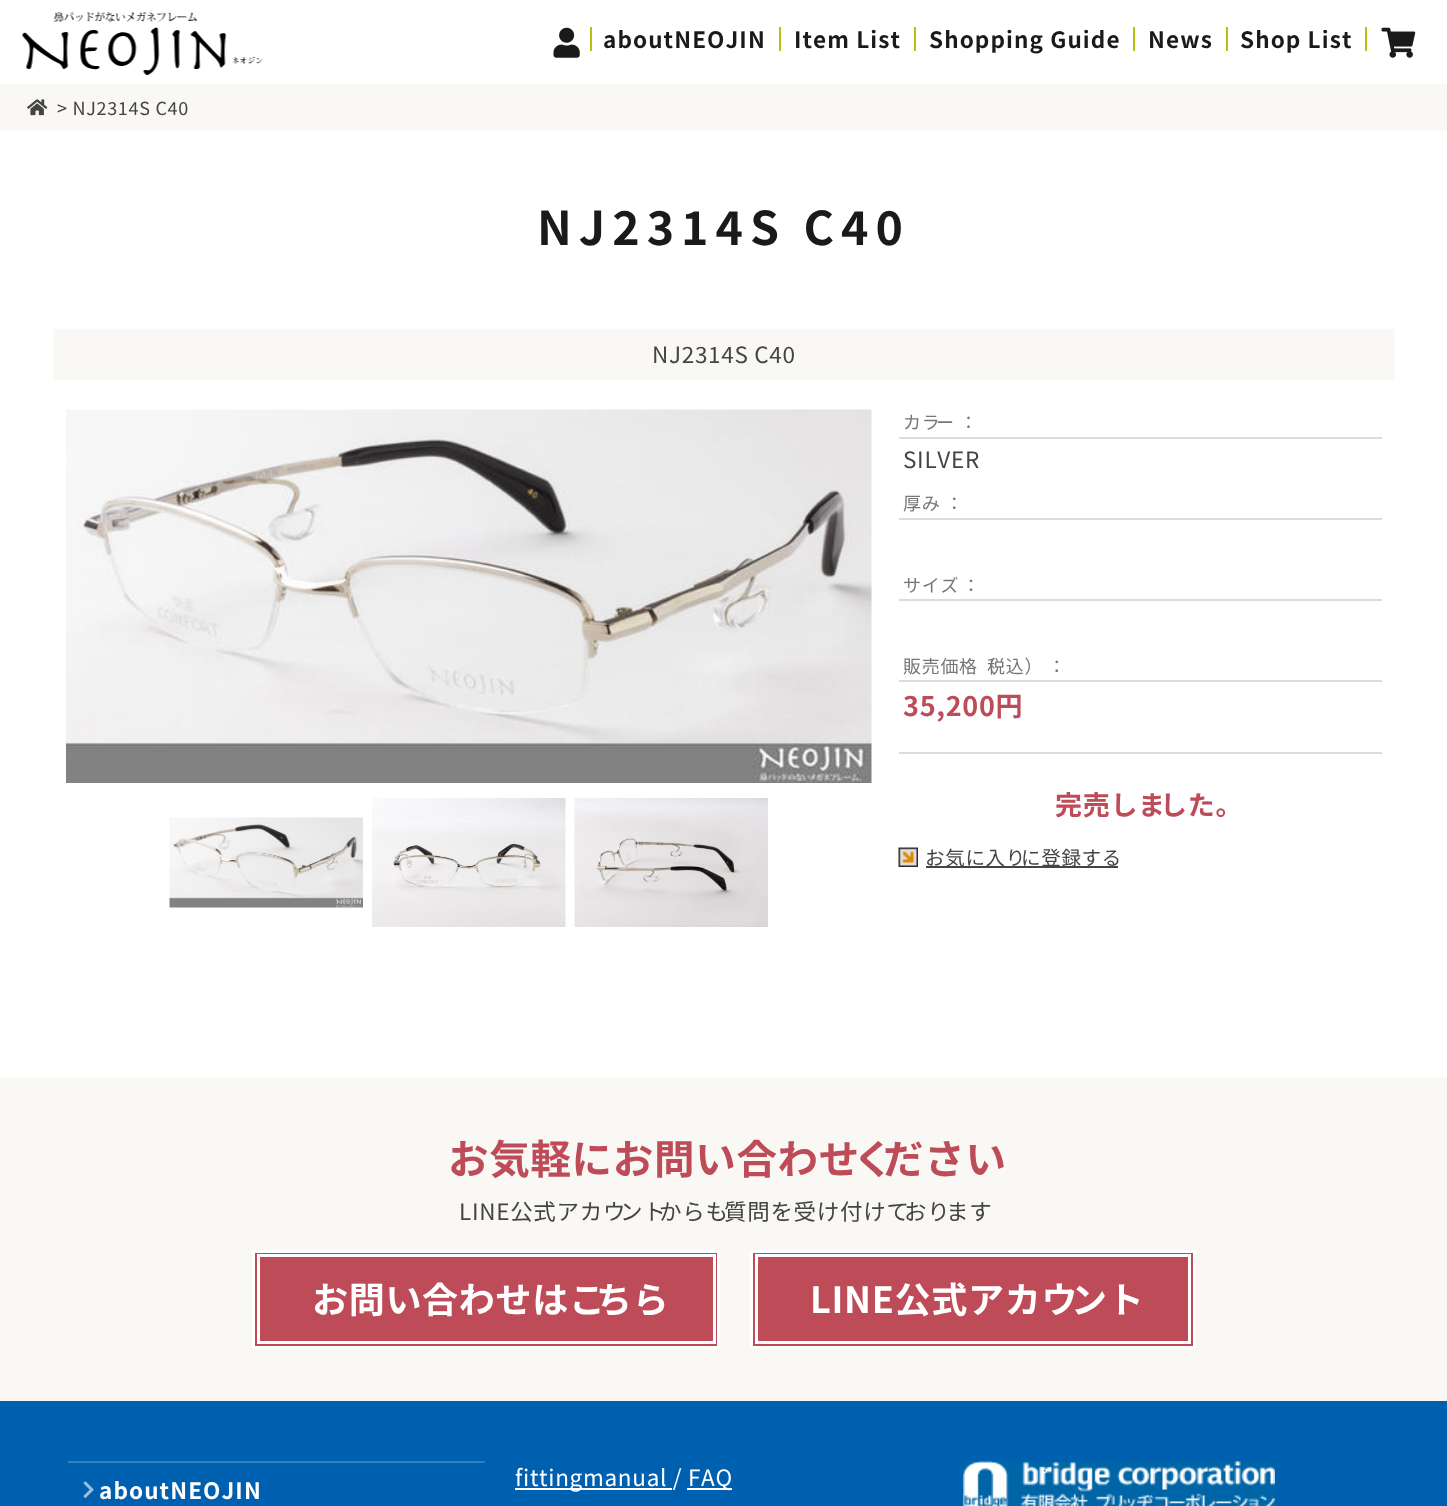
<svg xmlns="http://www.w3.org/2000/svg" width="1447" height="1506">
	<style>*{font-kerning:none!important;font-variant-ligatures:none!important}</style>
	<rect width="100%" height="100%" fill="#FFFFFF" />
	<image x="22" y="12" width="241" height="63" href="assets/img1.png" />
	<image x="553" y="27" width="27" height="31" href="assets/img2.png" />
	<rect x="590" y="27" width="2" height="24" fill="#BDBF0F" />
	<text x="603" y="48" font-family="Noto Sans JP" font-size="22.5" font-weight="700" letter-spacing="1.1" fill="#1A1A1A">aboutNEOJIN</text>
	<rect x="779" y="27" width="2" height="24" fill="#BDBF0F" />
	<text x="794" y="48" font-family="Noto Sans JP" font-size="22.5" font-weight="700" letter-spacing="1.1" fill="#1A1A1A">Item List</text>
	<rect x="914" y="27" width="2" height="24" fill="#BDBF0F" />
	<text x="929" y="48" font-family="Noto Sans JP" font-size="22.5" font-weight="700" letter-spacing="1.1" fill="#1A1A1A">Shopping Guide</text>
	<rect x="1133" y="27" width="2" height="24" fill="#BDBF0F" />
	<text x="1148" y="48" font-family="Noto Sans JP" font-size="22.5" font-weight="700" letter-spacing="1.1" fill="#1A1A1A">News</text>
	<rect x="1226" y="27" width="2" height="24" fill="#BDBF0F" />
	<text x="1240" y="48" font-family="Noto Sans JP" font-size="22.5" font-weight="700" letter-spacing="1.1" fill="#1A1A1A">Shop List</text>
	<rect x="1365" y="27" width="2" height="24" fill="#BDBF0F" />
	<image x="1381" y="27" width="35" height="31" href="assets/img3.png" />
	<rect x="0" y="84" width="1447" height="47" fill="#FAF8F5" />
	<image x="27" y="99" width="21" height="17" href="assets/img4.png" />
	<text x="57" y="115" font-family="Noto Sans JP" font-size="18" letter-spacing="0.7" fill="#444444">&gt; NJ2314S C40</text>
	<text x="537" y="245" font-family="Noto Sans JP" font-size="46.5" font-weight="700" letter-spacing="7" fill="#1A1A1A">NJ2314S C40</text>
	<rect x="53" y="329" width="1342" height="51" fill="#FAF8F5" />
	<text x="652" y="363" font-family="Noto Sans JP" font-size="22.5" letter-spacing="0.7" fill="#444444">NJ2314S C40</text>
	<image x="66" y="409" width="806" height="374" href="assets/img5.png" />
	<image x="169" y="817" width="194" height="91" href="assets/img6.png" />
	<image x="372" y="798" width="194" height="129" href="assets/img7.png" />
	<image x="574" y="798" width="194" height="129" href="assets/img8.png" />
	<rect x="899" y="752" width="483" height="2" fill="#DCDCDC" />
	<rect x="899" y="437" width="483" height="2" fill="#DCDCDC" />
	<text x="903" y="429" font-family="Noto Sans JP" font-size="18" letter-spacing="0.7" fill="#777777">カラ</text>
	<text x="936" y="429" font-family="Noto Sans JP" font-size="18" letter-spacing="0.7" fill="#777777">ー ：</text>
	<text x="903" y="468" font-family="Noto Sans JP" font-size="22.5" letter-spacing="0.7" fill="#444444">SILVER</text>
	<rect x="899" y="518" width="483" height="2" fill="#DCDCDC" />
	<text x="903" y="510" font-family="Noto Sans JP" font-size="18" letter-spacing="0.7" fill="#777777">厚み ：</text>
	<rect x="899" y="599" width="483" height="2" fill="#DCDCDC" />
	<text x="903" y="592" font-family="Noto Sans JP" font-size="18" letter-spacing="0.7" fill="#777777">サイズ</text>
	<text x="962" y="592" font-family="Noto Sans JP" font-size="18" letter-spacing="0.7" fill="#777777">：</text>
	<rect x="899" y="680" width="483" height="2" fill="#DCDCDC" />
	<text x="903" y="673" font-family="Noto Sans JP" font-size="18" letter-spacing="0.7" fill="#777777">販売価格（</text>
	<text x="987" y="673" font-family="Noto Sans JP" font-size="18" letter-spacing="0.7" fill="#777777">税込） ：</text>
	<g font-family="Noto Sans JP" font-size="27" font-weight="700" letter-spacing="0.7" fill="#BD4C58">
		<text x="903" y="716">35,200円</text>
		<text x="1055" y="815">完売しま</text>
		<text x="1160" y="815">した。</text>
	</g>
	<image x="898" y="847" width="20" height="20" href="assets/img9.png" />
	<rect x="926" y="866" width="192" height="2" fill="#444444" />
	<text x="925" y="865" font-family="Noto Sans JP" font-size="19.5" letter-spacing="0.7" fill="#444444">お気に入り</text>
	<text x="1021" y="865" font-family="Noto Sans JP" font-size="19.5" letter-spacing="0.7" fill="#444444">に登録する</text>
	<rect x="0" y="1077" width="1447" height="324" fill="#FAF8F5" />
	<text x="448" y="1174" font-family="Noto Sans JP" font-size="40.5" font-weight="700" letter-spacing="0.7" fill="#BD4C58">お気軽にお問い合わせ</text>
	<text x="853" y="1174" font-family="Noto Sans JP" font-size="40.5" font-weight="700" letter-spacing="0.7" fill="#BD4C58">く</text>
	<text x="883" y="1174" font-family="Noto Sans JP" font-size="40.5" font-weight="700" letter-spacing="0.7" fill="#BD4C58">ださい</text>
	<text x="459" y="1220" font-family="Noto Sans JP" font-size="22.5" letter-spacing="0.7" fill="#444444">LINE公式アカウ</text>
	<text x="620" y="1220" font-family="Noto Sans JP" font-size="22.5" letter-spacing="0.7" fill="#444444">ント</text>
	<text x="659" y="1220" font-family="Noto Sans JP" font-size="22.5" letter-spacing="0.7" fill="#444444">からも</text>
	<text x="724" y="1220" font-family="Noto Sans JP" font-size="22.5" letter-spacing="0.7" fill="#444444">質問を受け付けて</text>
	<text x="904" y="1220" font-family="Noto Sans JP" font-size="22.5" letter-spacing="0.7" fill="#444444">おり</text>
	<text x="946" y="1220" font-family="Noto Sans JP" font-size="22.5" letter-spacing="0.7" fill="#444444">ます</text>
	<rect x="253.5" y="1251.5" width="465" height="96" rx="1.5" fill="#BD4C58" stroke="#FFFFFF" stroke-width="3" />
	<rect x="258.5" y="1255.5" width="456" height="87" fill="none" stroke="#FFFFFF" stroke-width="3" />
	<text x="312" y="1313" font-family="Noto Sans JP" font-size="36" font-weight="700" letter-spacing="0.7" fill="#FFFFFF">お問い合わせはこ</text>
	<text x="596" y="1313" font-family="Noto Sans JP" font-size="36" font-weight="700" letter-spacing="0.7" fill="#FFFFFF">ちら</text>
	<rect x="751.5" y="1251.5" width="443" height="96" rx="1.5" fill="#BD4C58" stroke="#FFFFFF" stroke-width="3" />
	<rect x="756.5" y="1255.5" width="433" height="87" fill="none" stroke="#FFFFFF" stroke-width="3" />
	<text x="810" y="1313" font-family="Noto Sans JP" font-size="36" font-weight="700" letter-spacing="0.7" fill="#FFFFFF">LINE公式アカウ</text>
	<text x="1071" y="1313" font-family="Noto Sans JP" font-size="36" font-weight="700" letter-spacing="0.7" fill="#FFFFFF">ント</text>
	<rect x="0" y="1401" width="1447" height="105" fill="#0060B0" />
	<rect x="68" y="1461" width="417" height="2" fill="#3380C0" />
	<image x="83" y="1481" width="11" height="17" href="assets/img10.png" />
	<text x="99" y="1499" font-family="Noto Sans JP" font-size="22.5" font-weight="700" letter-spacing="1.1" fill="#FFFFFF">aboutNEOJIN</text>
	<rect x="515" y="1488" width="157" height="2" fill="#FFFFFF" />
	<text x="515" y="1486" font-family="Noto Sans JP" font-size="22.5" letter-spacing="0.7" fill="#FFFFFF">fittingmanual /</text>
	<rect x="687" y="1488" width="45" height="2" fill="#FFFFFF" />
	<text x="688" y="1486" font-family="Noto Sans JP" font-size="22.5" letter-spacing="0.7" fill="#FFFFFF">FAQ</text>
	<image x="963" y="1461" width="312" height="45" href="assets/img11.png" />
</svg>
